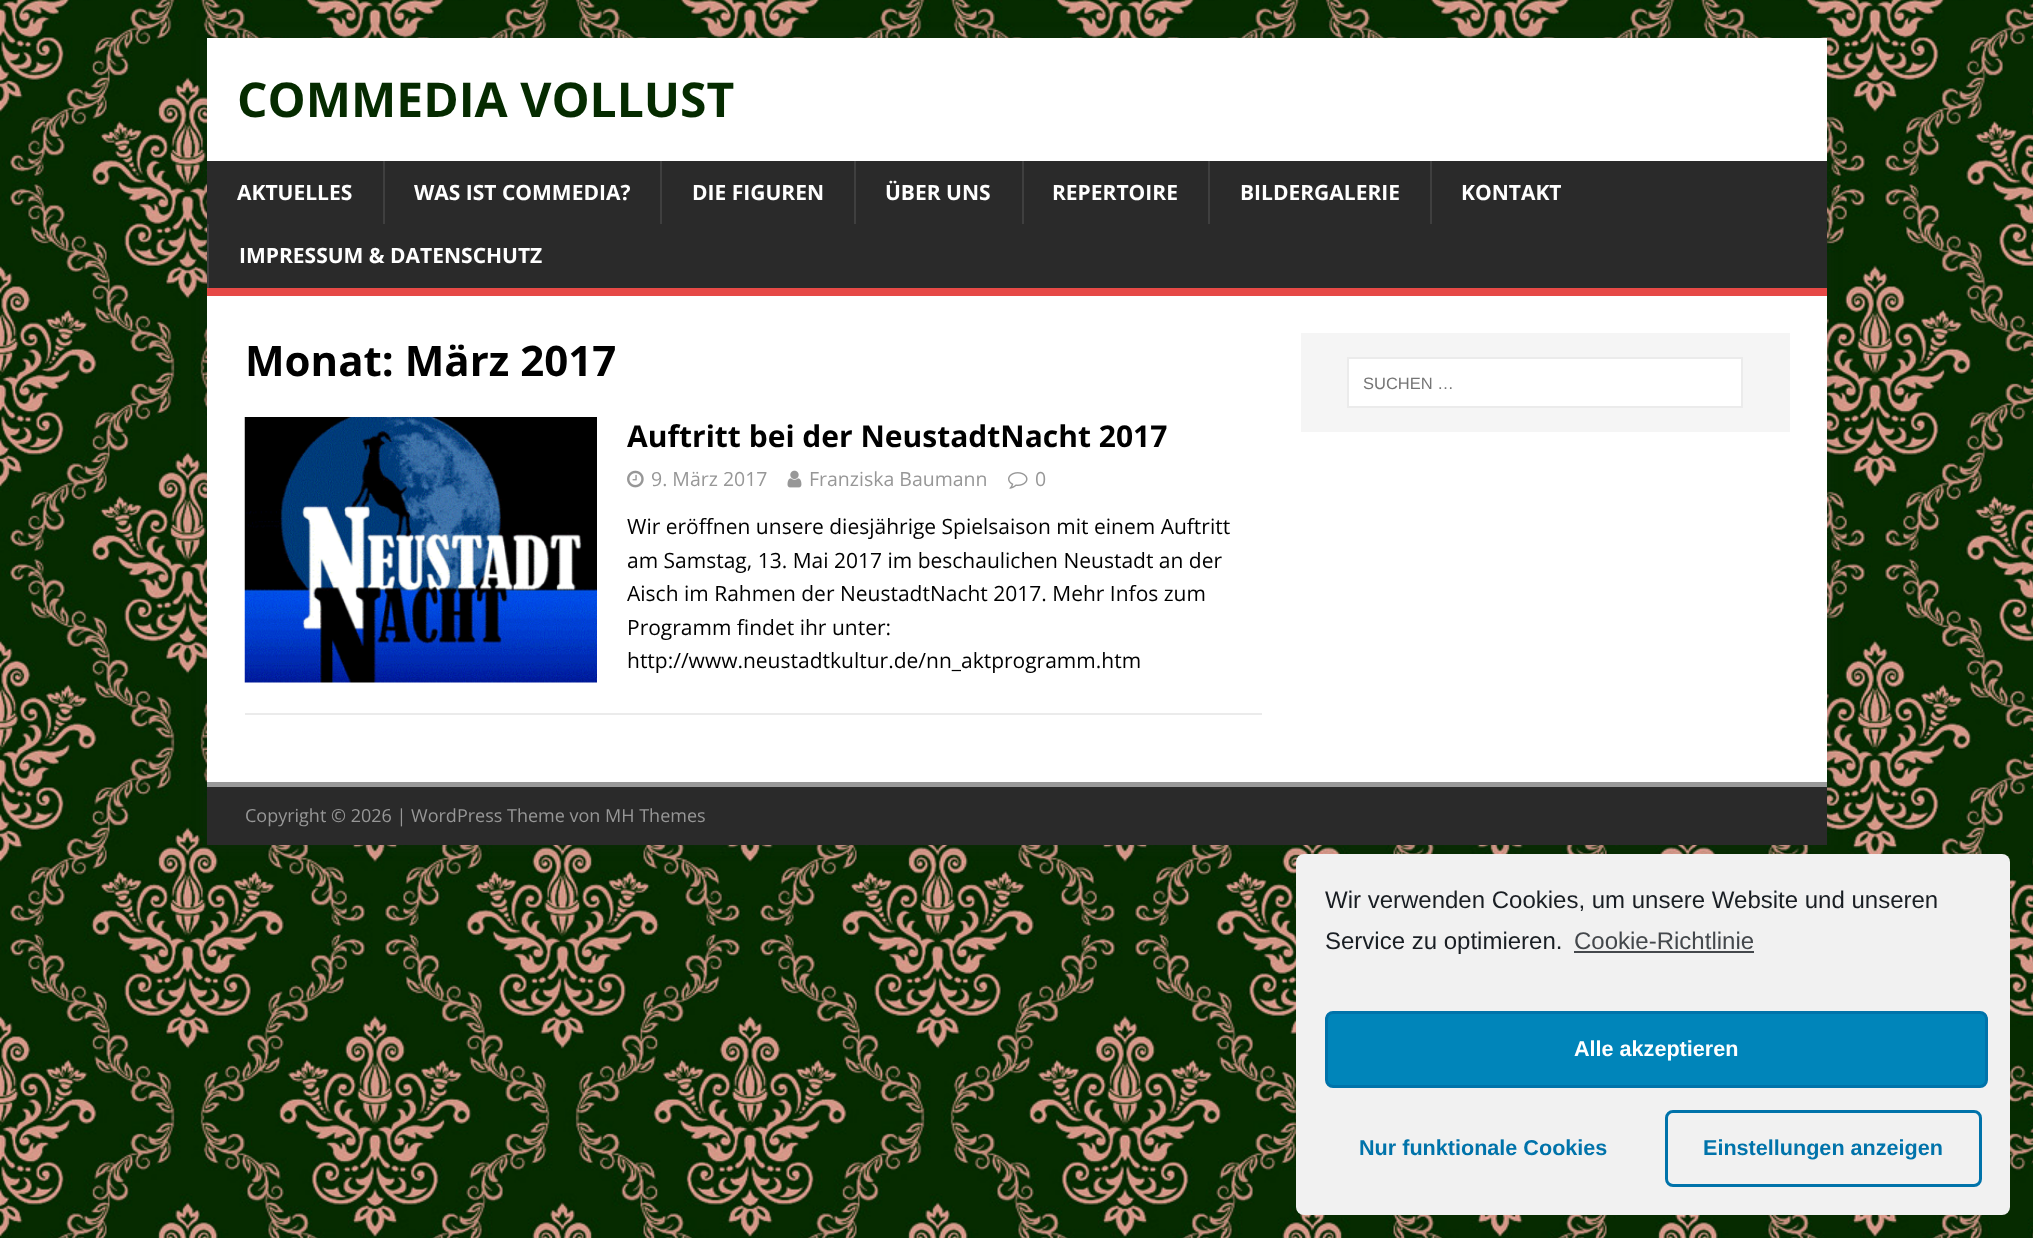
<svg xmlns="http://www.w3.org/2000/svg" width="2033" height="1238">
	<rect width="100%" height="100%" fill="#FFFFFF" />
	<image x="0" y="0" width="2033" height="1238" href="assets/img1.png" />
	<rect x="207" y="38" width="1620" height="807" fill="#323232" fill-opacity="0.17" filter="blur(7.5px)" />
	<rect x="207" y="38" width="1620" height="123" fill="#FFFFFF" />
	<text x="237" y="117" font-family="Open Sans" font-size="48" font-weight="700" fill="#052B00">COMMEDIA VOLLUST</text>
	<rect x="207" y="161" width="1620" height="127" fill="#2A2A2A" />
	<rect x="207" y="288" width="1620" height="8" fill="#E64946" />
	<text x="237" y="200" font-family="Open Sans" font-size="21" font-weight="700" fill="#FFFFFF">AKTUELLES</text>
	<rect x="383" y="161" width="2" height="63" fill="#3F3F3F" />
	<text x="414" y="200" font-family="Open Sans" font-size="21" font-weight="700" fill="#FFFFFF">WAS IST COMMEDIA?</text>
	<rect x="660" y="161" width="2" height="63" fill="#3F3F3F" />
	<text x="692" y="200" font-family="Open Sans" font-size="21" font-weight="700" fill="#FFFFFF">DIE FIGUREN</text>
	<rect x="854" y="161" width="2" height="63" fill="#3F3F3F" />
	<text x="885" y="200" font-family="Open Sans" font-size="21" font-weight="700" fill="#FFFFFF">ÜBER UNS</text>
	<rect x="1022" y="161" width="2" height="63" fill="#3F3F3F" />
	<text x="1052" y="200" font-family="Open Sans" font-size="21" font-weight="700" fill="#FFFFFF">REPERTOIRE</text>
	<rect x="1208" y="161" width="2" height="63" fill="#3F3F3F" />
	<text x="1240" y="200" font-family="Open Sans" font-size="21" font-weight="700" fill="#FFFFFF">BILDERGALERIE</text>
	<rect x="1430" y="161" width="2" height="63" fill="#3F3F3F" />
	<text x="1461" y="200" font-family="Open Sans" font-size="21" font-weight="700" fill="#FFFFFF">KONTAKT</text>
	<rect x="207" y="224" width="2" height="64" fill="#3F3F3F" />
	<text x="239" y="263" font-family="Open Sans" font-size="21" font-weight="700" fill="#FFFFFF">IMPRESSUM &amp; DATENSCHUTZ</text>
	<rect x="207" y="296" width="1620" height="486" fill="#FFFFFF" />
	<text x="245" y="376" font-family="Open Sans" font-size="42" font-weight="700" fill="#000000">Monat: März 2017</text>
	<rect x="245" y="713" width="1017" height="2" fill="#EBEBEB" />
	<image x="244" y="417" width="353" height="266" href="assets/img2.png" />
	<text x="627" y="447" font-family="Open Sans" font-size="30" font-weight="700" fill="#000000">Auftritt bei der NeustadtNacht 2017</text>
	<image x="627" y="470" width="17" height="18" href="assets/img3.png" />
	<text x="651" y="486" font-family="Open Sans" font-size="19.5" fill="#979797">9. März 2017</text>
	<image x="787" y="470" width="15" height="18" href="assets/img4.png" />
	<text x="809" y="486" font-family="Open Sans" font-size="19.5" fill="#979797">Franziska Baumann</text>
	<image x="1008" y="472" width="20" height="17" href="assets/img5.png" />
	<text x="1035" y="486" font-family="Open Sans" font-size="19.5" fill="#979797">0</text>
	<g font-family="Open Sans" font-size="21" fill="#000000">
		<text x="627" y="534">Wir eröffnen unsere diesjährige Spielsaison mit einem Auftritt</text>
		<text x="627" y="568">am Samstag, 13. Mai 2017 im beschaulichen Neustadt an der</text>
		<text x="627" y="601">Aisch im Rahmen der NeustadtNacht 2017. Mehr Infos zum</text>
		<text x="627" y="635">Programm findet ihr unter:</text>
		<text x="627" y="668">http://www.neustadtkultur.de/nn_aktprogramm.htm</text>
	</g>
	<rect x="1301" y="333" width="489" height="99" fill="#F5F5F5" />
	<rect x="1348" y="358" width="394" height="49" fill="#FFFFFF" stroke="#EBEBEB" stroke-width="2" />
	<text x="1363" y="389" font-family="Liberation Sans" font-size="16.5" fill="#757575">SUCHEN …</text>
	<rect x="207" y="787" width="1620" height="58" fill="#2A2A2A" />
	<rect x="207" y="782" width="1620" height="5" fill="#999999" />
	<text x="245" y="822" font-family="Open Sans" font-size="18" fill="#979797">Copyright © 2026 | WordPress Theme von MH Themes</text>
	<rect x="1296" y="854" width="714" height="361" rx="8" fill="#F1F1F1" />
	<g font-family="Liberation Sans" font-size="24" fill="#191E23">
		<text x="1325" y="908">Wir verwenden Cookies, um unsere Website und unseren</text>
		<text x="1325" y="949">Service zu optimieren.</text>
	</g>
	<text x="1574" y="949" font-family="Liberation Sans" font-size="24" fill="#44484C">Cookie-Richtlinie</text>
	<rect x="1574" y="951" width="180" height="2" fill="#44484C" />
	<rect x="1326.5" y="1012.5" width="660" height="74" rx="6.5" fill="#0085BA" stroke="#0073AA" stroke-width="3" />
	<text x="1574" y="1056" font-family="Liberation Sans" font-size="21.6" font-weight="700" fill="#FFFFFF">Alle akzeptieren</text>
	<text x="1359" y="1155" font-family="Liberation Sans" font-size="21.6" font-weight="700" fill="#0073AA">Nur funktionale Cookies</text>
	<rect x="1666.5" y="1111.5" width="314" height="74" rx="6.5" fill="none" stroke="#0073AA" stroke-width="3" />
	<text x="1703" y="1155" font-family="Liberation Sans" font-size="21.6" font-weight="700" fill="#0073AA">Einstellungen anzeigen</text>
</svg>
